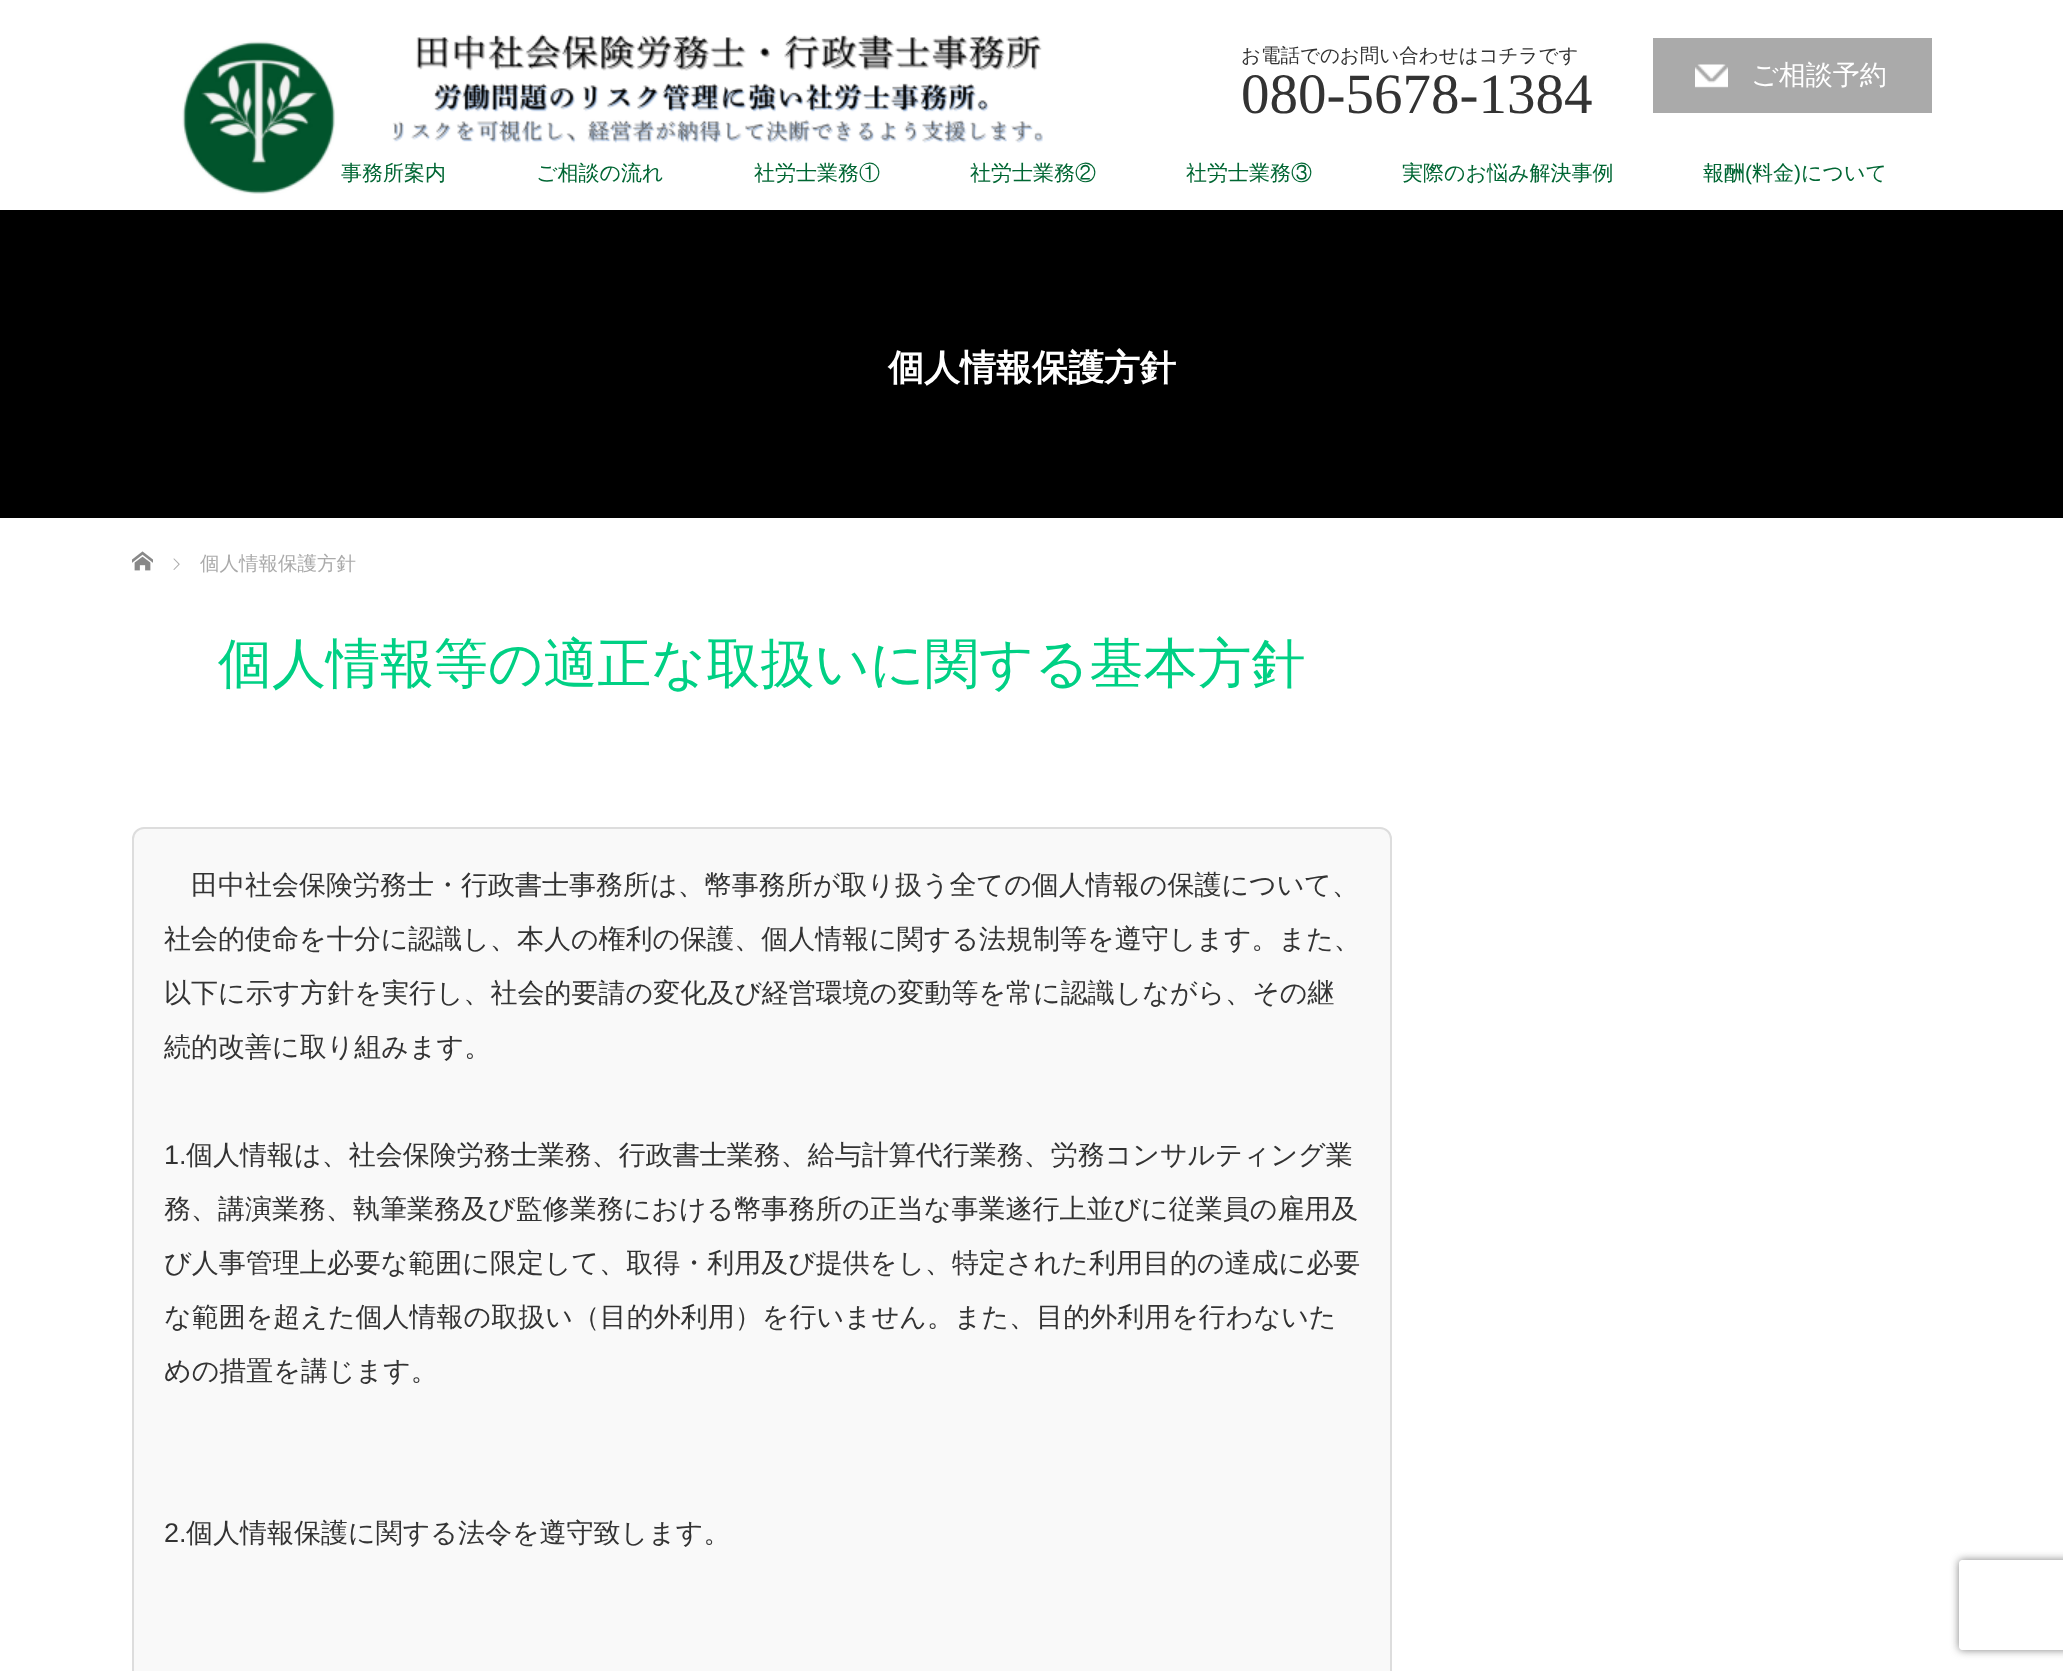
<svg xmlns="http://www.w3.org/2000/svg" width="2063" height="1671">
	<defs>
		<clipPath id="clip1"><path d="M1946 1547H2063V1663H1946ZM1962 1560H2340C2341.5 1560 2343 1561.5 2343 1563V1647C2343 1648.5 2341.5 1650 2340 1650H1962C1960.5 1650 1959 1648.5 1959 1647V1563C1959 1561.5 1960.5 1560 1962 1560Z" clip-rule="evenodd" /></clipPath>
	</defs>
	<rect width="100%" height="100%" fill="#FFFFFF" />
	<image x="182" y="34" width="861" height="160" href="assets/img1.png" />
	<text x="1241" y="62" font-family="WenQuanYi Zen Hei" font-size="19.5" font-weight="500" fill="#333333">お電話でのお問い合わせはコチラです</text>
	<text x="1241" y="113" font-family="Liberation Serif" font-size="57" fill="#333333">080-5678-1384</text>
	<rect x="1653" y="38" width="279" height="75" fill="#AAAAAA" />
	<image x="1695" y="64" width="33" height="24" href="assets/img2.png" />
	<text x="1751" y="84" font-family="WenQuanYi Zen Hei" font-size="27" font-weight="500" fill="#FFFFFF">ご相談予約</text>
	<g font-family="WenQuanYi Zen Hei" font-size="21" font-weight="500" fill="#006633">
		<text x="341" y="180">事務所案内</text>
		<text x="536" y="180">ご相談の流れ</text>
		<text x="754" y="180">社労士業務①</text>
		<text x="970" y="180">社労士業務②</text>
		<text x="1186" y="180">社労士業務③</text>
		<text x="1402" y="180">実際のお悩み解決事例</text>
		<text x="1703" y="180">報酬</text>
	</g>
	<text x="1745" y="180" font-family="Liberation Sans" font-size="21" fill="#006633">(</text>
	<text x="1752" y="180" font-family="WenQuanYi Zen Hei" font-size="21" font-weight="500" fill="#006633">料金</text>
	<text x="1794" y="180" font-family="Liberation Sans" font-size="21" fill="#006633">)</text>
	<text x="1801" y="180" font-family="WenQuanYi Zen Hei" font-size="21" font-weight="500" fill="#006633">について</text>
	<rect x="0" y="210" width="2063" height="308" fill="#000000" />
	<text x="888" y="380" font-family="WenQuanYi Zen Hei" font-size="36" font-weight="700" fill="#FFFFFF">個人情報保護方針</text>
	<image x="132" y="551" width="21" height="20" href="assets/img3.png" />
	<image x="173" y="558" width="7" height="12" href="assets/img4.png" />
	<text x="200" y="570" font-family="WenQuanYi Zen Hei" font-size="19.5" font-weight="500" fill="#AAAAAA">個人情報保護方針</text>
	<text x="218" y="682" font-family="WenQuanYi Zen Hei" font-size="54" font-weight="500" fill="#00D084">個人情報等の適正な取扱いに関する基本方針</text>
	<rect x="133" y="828" width="1258" height="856" rx="11" fill="#F9F9F9" stroke="#DDDDDD" stroke-width="2" />
	<g font-family="WenQuanYi Zen Hei" font-size="27" font-weight="500" fill="#333333">
		<text x="191" y="894">田中社会保険労務士・行政書士事務所は、幣事務所が取り扱う全ての個人情報の保護について、</text>
		<text x="164" y="948">社会的使命を十分に認識し、本人の権利の保護、個人情報に関する法規制等を遵守します。また、</text>
		<text x="164" y="1002">以下に示す方針を実行し、社会的要請の変化及び経営環境の変動等を常に認識しながら、その継</text>
		<text x="164" y="1056">続的改善に取り組みます。</text>
	</g>
	<text x="164" y="1164" font-family="Liberation Sans" font-size="27" fill="#333333">1.</text>
	<g font-family="WenQuanYi Zen Hei" font-size="27" font-weight="500" fill="#333333">
		<text x="186" y="1164">個人情報は、社会保険労務士業務、行政書士業務、給与計算代行業務、労務コンサルティング業</text>
		<text x="164" y="1218">務、講演業務、執筆業務及び監修業務における幣事務所の正当な事業遂行上並びに従業員の雇用及</text>
		<text x="164" y="1272">び人事管理上必要な範囲に限定して、取得・利用及び提供をし、特定された利用目的の達成に必要</text>
		<text x="164" y="1326">な範囲を超えた個人情報の取扱い（目的外利用）を行いません。また、目的外利用を行わないた</text>
		<text x="164" y="1380">めの措置を講じます。</text>
	</g>
	<text x="164" y="1542" font-family="Liberation Sans" font-size="27" fill="#333333">2.</text>
	<text x="186" y="1542" font-family="WenQuanYi Zen Hei" font-size="27" font-weight="500" fill="#333333">個人情報保護に関する法令を遵守致します。</text>
	<g clip-path="url(#clip1)">
		<rect x="1959" y="1560" width="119" height="90" rx="3" fill="#808080" filter="blur(4px)" />
	</g>
</svg>
